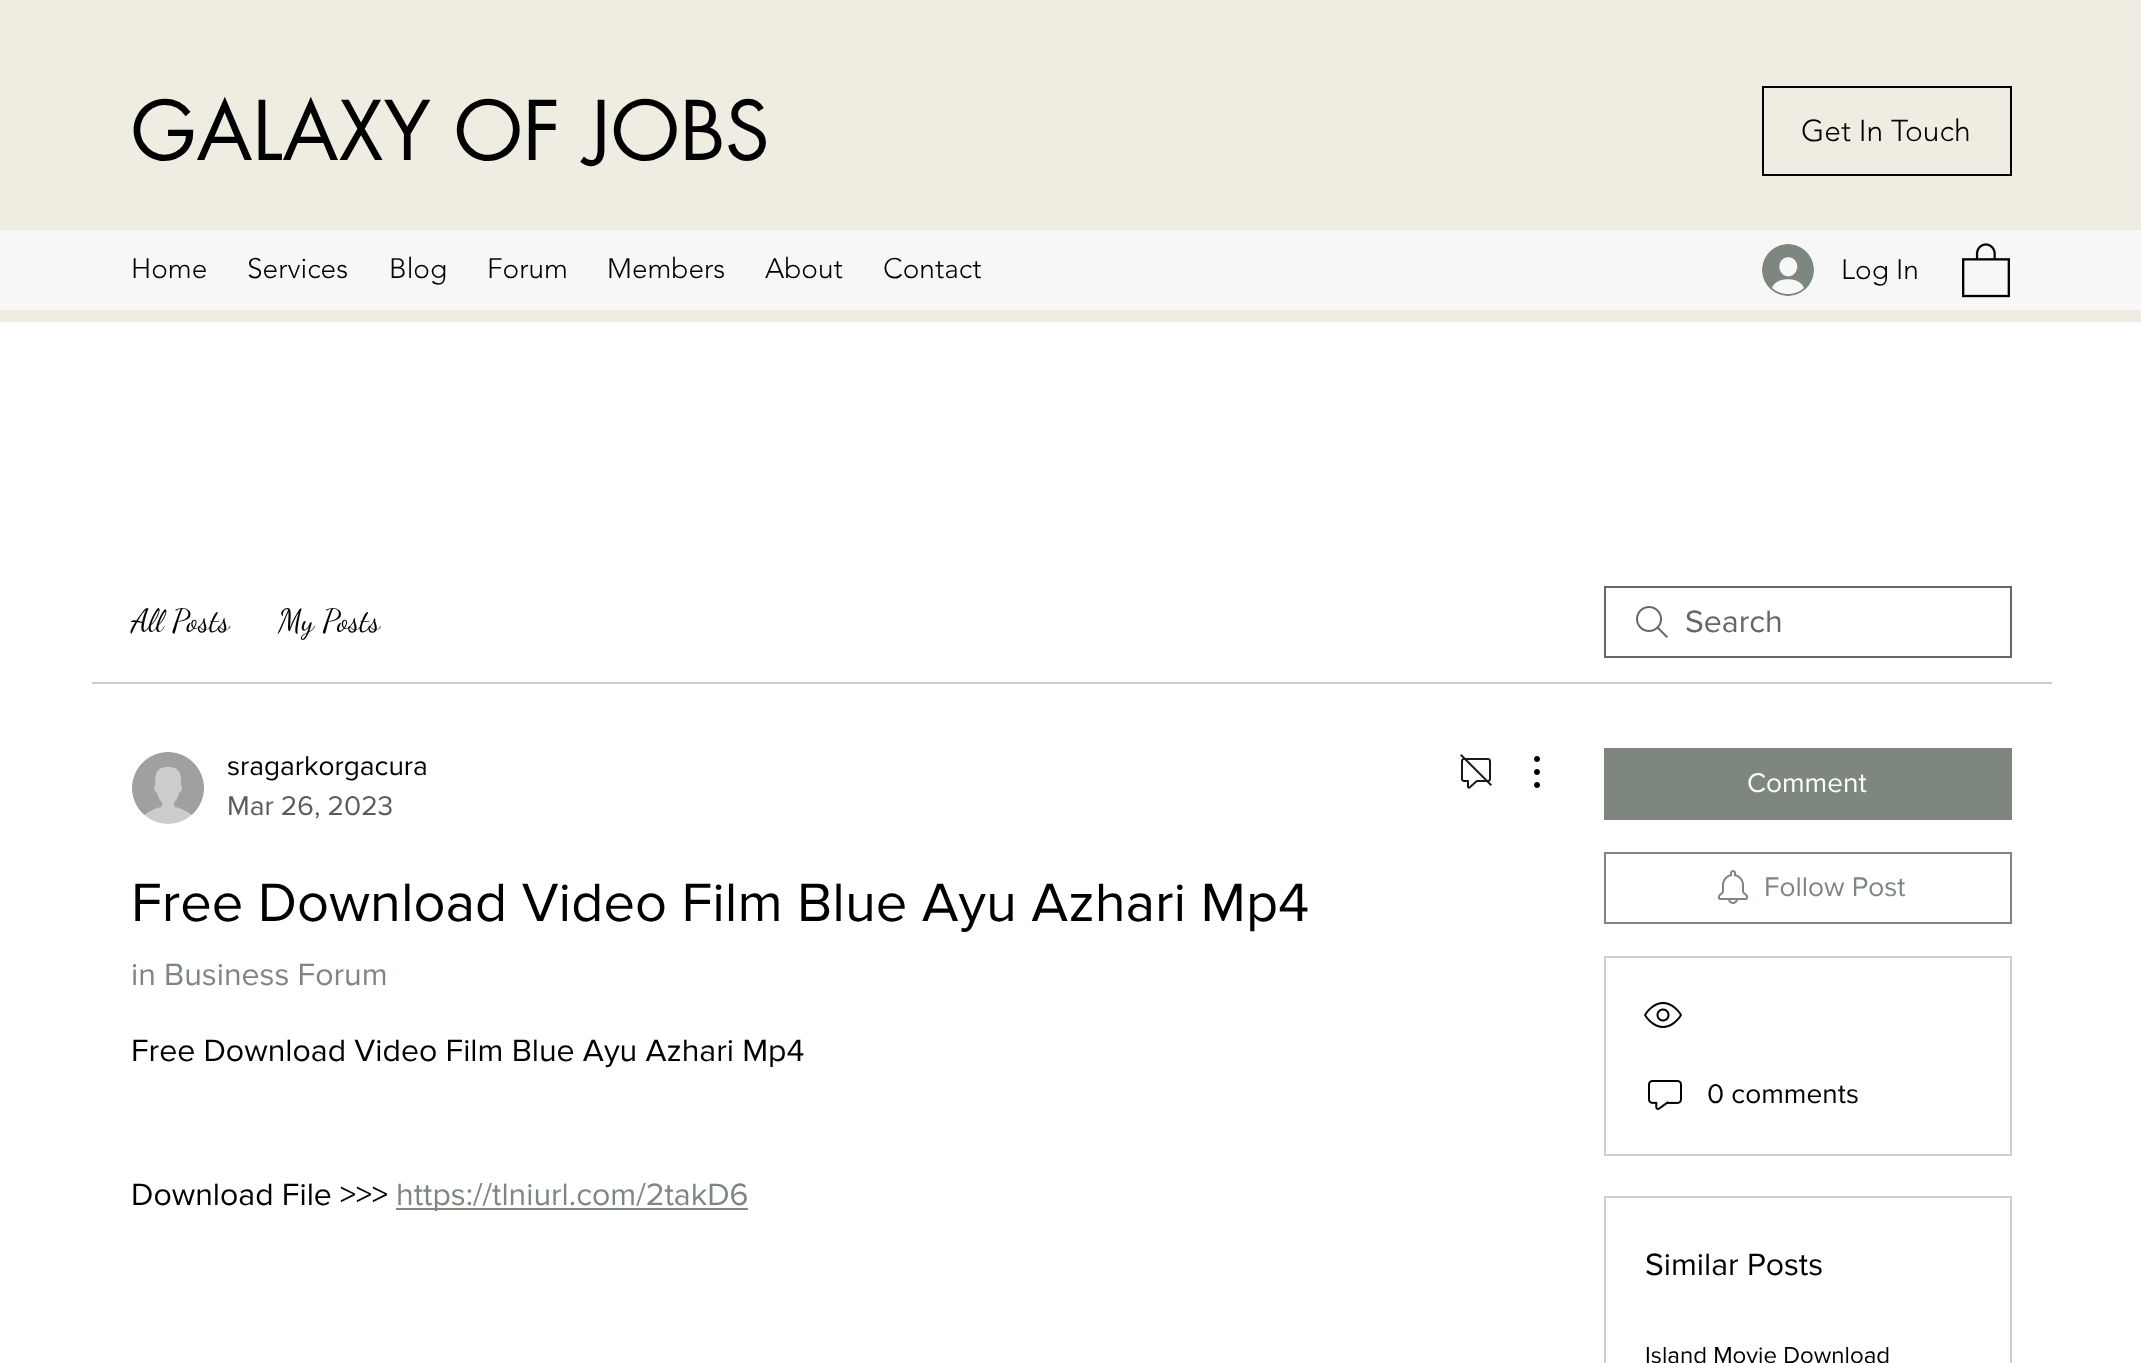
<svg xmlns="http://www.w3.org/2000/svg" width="2141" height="1363">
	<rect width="100%" height="100%" fill="#FFFFFF" />
	<rect x="0" y="0" width="2141" height="322" fill="#EFECE2" />
	<text x="131" y="160" font-family="futura" font-size="80" fill="#000000">GALAXY OF JOBS</text>
	<rect x="1763" y="87" width="248" height="88" fill="none" stroke="#000000" stroke-width="2" />
	<text x="1801" y="141" font-family="'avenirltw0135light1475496'" font-size="30" font-weight="300" fill="#000000">Get In Touch</text>
	<rect x="0" y="230" width="2141" height="80" fill="#F7F7F7" />
	<g font-family="'avenirltw0135light1475496'" font-size="28" font-weight="300" fill="#000000">
		<text x="131" y="278">Home</text>
		<text x="247" y="278">Services</text>
		<text x="389" y="278">Blog</text>
		<text x="487" y="278">Forum</text>
		<text x="607" y="278">Members</text>
		<text x="765" y="278">About</text>
		<text x="883" y="278">Contact</text>
	</g>
	<image x="1762" y="244" width="52" height="52" href="assets/img1.png" />
	<text x="1841" y="279" font-family="'avenirltw0135light1475496'" font-size="28" font-weight="300" fill="#000000">Log In</text>
	<image x="1962" y="243" width="48" height="55" href="assets/img2.png" />
	<rect x="92" y="682" width="1960" height="2" fill="#CCCCCC" />
	<g font-family="Dancing Script" font-size="32" fill="#000000">
		<text x="131" y="631">All Posts</text>
		<text x="278" y="631">My Posts</text>
	</g>
	<image x="1636" y="606" width="32" height="32" href="assets/img3.png" />
	<rect x="1605" y="587" width="406" height="70" fill="none" stroke="#666666" stroke-width="2" />
	<text x="1685" y="632" font-family="'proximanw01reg'" font-size="32" fill="#666666">Search</text>
	<image x="132" y="752" width="72" height="72" href="assets/img4.png" />
	<text x="227" y="775" font-family="'proximanw01reg'" font-size="28" fill="#000000">sragarkorgacura</text>
	<text x="227" y="815" font-family="'proximanw01reg'" font-size="28" fill="#5C5C5C">Mar 26, 2023</text>
	<image x="1460" y="754" width="32" height="35" href="assets/img5.png" />
	<image x="1534" y="756" width="6" height="32" href="assets/img6.png" />
	<text x="131" y="921" font-family="'proximanw01reg'" font-size="56" fill="#000000">Free Download Video Film Blue Ayu Azhari Mp4</text>
	<text x="131" y="985" font-family="'proximanw01reg'" font-size="32" fill="#7E877F">in Business Forum</text>
	<g font-family="'proximanw01reg'" font-size="32" fill="#000000">
		<text x="131" y="1061">Free Download Video Film Blue Ayu Azhari Mp4</text>
		<text x="131" y="1205">Download File &gt;&gt;&gt;</text>
	</g>
	<rect x="396" y="1208" width="352" height="2" fill="#7E877F" />
	<text x="396" y="1205" font-family="'proximanw01reg'" font-size="32" fill="#7E877F">https://tlniurl.com/2takD6</text>
	<rect x="1604" y="748" width="408" height="72" fill="#7E877F" />
	<text x="1747" y="792" font-family="'proximanw01reg'" font-size="28" fill="#FFFFFF">Comment</text>
	<rect x="1605" y="853" width="406" height="70" fill="none" stroke="#7E877F" stroke-width="2" />
	<image x="1718" y="870" width="30" height="34" href="assets/img7.png" />
	<text x="1764" y="896" font-family="'proximanw01reg'" font-size="28" fill="#7E877F">Follow Post</text>
	<rect x="1605" y="957" width="406" height="198" fill="none" stroke="#CCCCCC" stroke-width="2" />
	<image x="1644" y="1002" width="38" height="26" href="assets/img8.png" />
	<image x="1648" y="1080" width="34" height="30" href="assets/img9.png" />
	<text x="1707" y="1103" font-family="'proximanw01reg'" font-size="28" fill="#000000">0 comments</text>
	<rect x="1605" y="1197" width="406" height="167" fill="none" stroke="#CCCCCC" stroke-width="2" />
	<text x="1645" y="1275" font-family="'proximanw01reg'" font-size="32" fill="#000000">Similar Posts</text>
	<text x="1645" y="1363" font-family="'proximanw01reg'" font-size="24" fill="#000000">Island Movie Download</text>
</svg>
